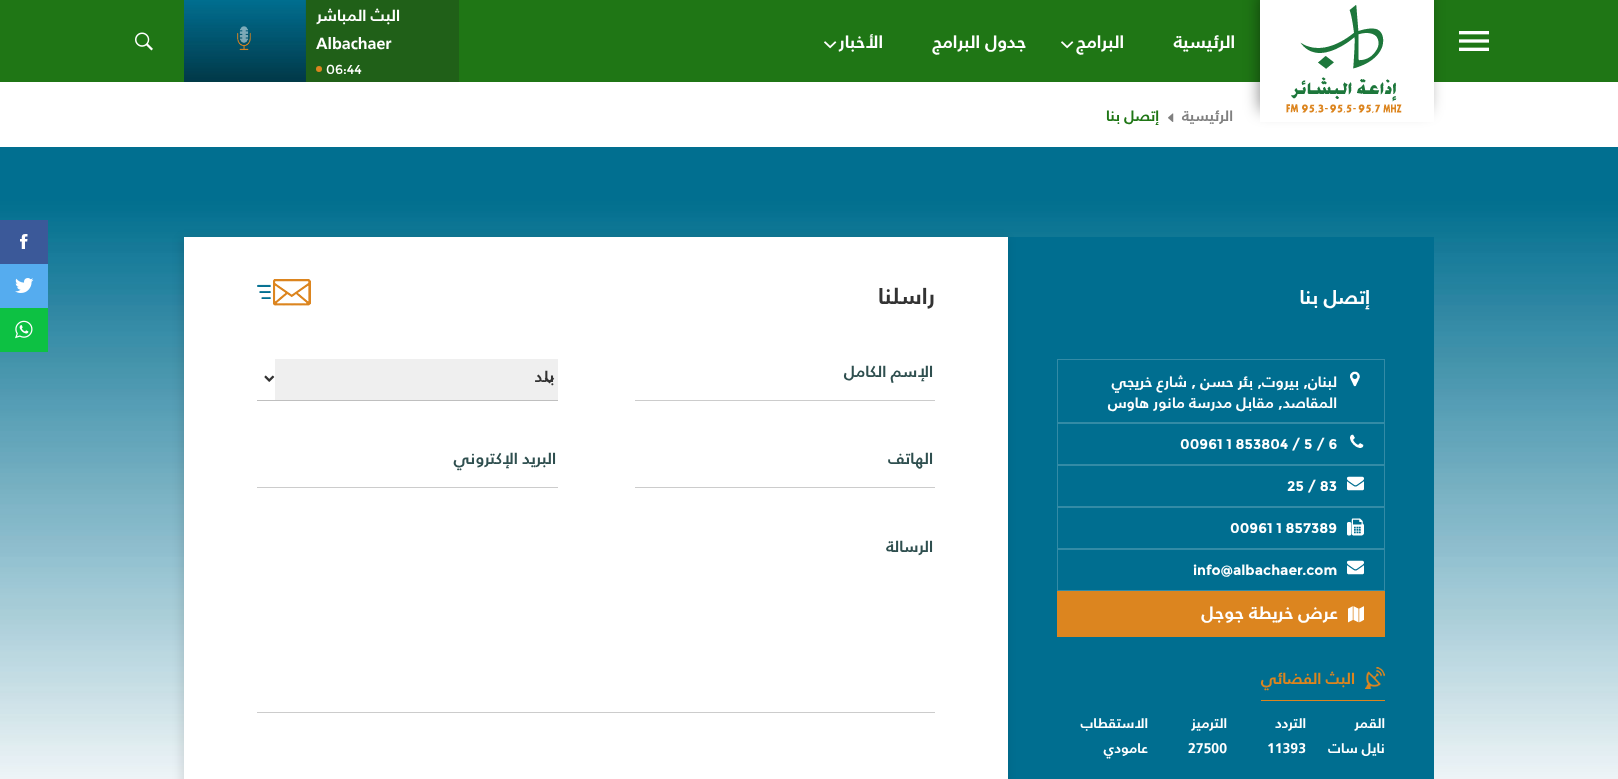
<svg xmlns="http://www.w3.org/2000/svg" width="1618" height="779">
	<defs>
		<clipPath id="clip1"><path d="M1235 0H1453V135H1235ZM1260 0H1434V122H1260Z" clip-rule="evenodd" /></clipPath>
	</defs>
	<rect width="100%" height="100%" fill="#FFFFFF" />
	<rect x="0" y="0" width="1618" height="82" fill="#1F7615" />
	<image x="1459" y="31" width="30" height="20" href="assets/img1.png" />
	<g clip-path="url(#clip1)">
		<rect x="1260" y="-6" width="168" height="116" fill="#000000" fill-opacity="0.49" filter="blur(8px)" />
	</g>
	<image x="1260" y="0" width="174" height="113" href="assets/img2.png" />
	<g font-family="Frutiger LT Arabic" font-size="18" font-weight="700" direction="rtl" fill="#FFFFFF">
		<text x="1235" y="48">الرئيسية</text>
		<text x="1124" y="48">البرامج</text>
	</g>
	<image x="1061" y="41" width="13" height="8" href="assets/img3.png" />
	<g font-family="Frutiger LT Arabic" font-size="18" font-weight="700" direction="rtl" fill="#FFFFFF">
		<text x="1026" y="48">جدول البرامج</text>
		<text x="883" y="48">الأخبار</text>
	</g>
	<image x="824" y="41" width="13" height="8" href="assets/img3.png" />
	<rect x="184" y="0" width="275" height="82" fill="#206018" />
	<text x="400" y="21" font-family="Frutiger LT Arabic" font-size="16" font-weight="700" direction="rtl" fill="#FFFFFF">البث المباشر</text>
	<text x="316" y="49" font-family="Frutiger LT Arabic" font-size="16" font-weight="700" fill="#FFFFFF">Albachaer</text>
	<text x="326" y="74" font-family="Montserrat" font-size="13" fill="#FFFFFF">06:44</text>
	<circle cx="319" cy="69" r="3" fill="#DC851F" />
	<image x="184" y="0" width="122" height="82" href="assets/img4.png" />
	<image x="135" y="32" width="18" height="19" href="assets/img5.png" />
	<text x="1233" y="121" font-family="Frutiger LT Arabic" font-size="15" font-weight="700" direction="rtl" fill="#808080">الرئيسية</text>
	<image x="1168" y="113" width="6" height="9" href="assets/img6.png" />
	<text x="1159" y="121" font-family="Frutiger LT Arabic" font-size="15" font-weight="700" direction="rtl" fill="#1F7615">إتصل بنا</text>
	<image x="0" y="147" width="1618" height="632" href="assets/img7.png" />
	<rect x="1008" y="237" width="426" height="542" fill="#006E90" />
	<text x="1370" y="304" font-family="Frutiger LT Arabic" font-size="20" font-weight="700" direction="rtl" fill="#FFFFFF">إتصل بنا</text>
	<rect x="1057.5" y="359.5" width="327" height="63" fill="none" stroke="#338BA6" />
	<image x="1350" y="371" width="10" height="16" href="assets/img8.png" />
	<g font-family="Frutiger LT Arabic" font-size="15" font-weight="700" direction="rtl" fill="#FFFFFF">
		<text x="1337" y="387">لبنان, بيروت, بئر حسن , شارع خريجي</text>
		<text x="1337" y="408">المقاصد, مقابل مدرسة مانور هاوس</text>
	</g>
	<rect x="1057.5" y="423.5" width="327" height="41" fill="none" stroke="#338BA6" />
	<image x="1350" y="434" width="14" height="14" href="assets/img9.png" />
	<text x="1180" y="449" font-family="Montserrat" font-size="14" font-weight="700" fill="#FFFFFF">00961 1 853804 / 5 / 6</text>
	<rect x="1057.5" y="465.5" width="327" height="41" fill="none" stroke="#338BA6" />
	<image x="1347" y="476" width="17" height="15" href="assets/img10.png" />
	<text x="1287" y="491" font-family="Montserrat" font-size="14" font-weight="700" fill="#FFFFFF">25 / 83</text>
	<rect x="1057.5" y="507.5" width="327" height="41" fill="none" stroke="#338BA6" />
	<image x="1347" y="518" width="17" height="18" href="assets/img11.png" />
	<text x="1230" y="533" font-family="Montserrat" font-size="14" font-weight="700" fill="#FFFFFF">00961 1 857389</text>
	<rect x="1057.5" y="549.5" width="327" height="41" fill="none" stroke="#338BA6" />
	<image x="1347" y="560" width="17" height="15" href="assets/img10.png" />
	<text x="1193" y="575" font-family="Montserrat" font-size="14" font-weight="700" fill="#FFFFFF">info@albachaer.com</text>
	<rect x="1057" y="591" width="328" height="46" fill="#DC851F" />
	<image x="1348" y="606" width="16" height="17" href="assets/img12.png" />
	<text x="1338" y="619" font-family="Frutiger LT Arabic" font-size="18" font-weight="700" direction="rtl" fill="#FFFFFF">عرض خريطة جوجل</text>
	<rect x="1261" y="700" width="124" height="1" fill="#DC851F" />
	<image x="1365" y="667" width="20" height="22" href="assets/img13.png" />
	<text x="1355" y="684" font-family="Frutiger LT Arabic" font-size="16" font-weight="700" direction="rtl" fill="#DC851F">البث الفضائي</text>
	<g font-family="Frutiger LT Arabic" font-size="14" font-weight="700" direction="rtl" fill="#FFFFFF">
		<text x="1385" y="728">القمر</text>
		<text x="1385" y="753">نايل سات</text>
		<text x="1306" y="728">التردد</text>
	</g>
	<text x="1267" y="753" font-family="Frutiger LT Arabic" font-size="14" font-weight="700" fill="#FFFFFF">11393</text>
	<text x="1227" y="728" font-family="Frutiger LT Arabic" font-size="14" font-weight="700" direction="rtl" fill="#FFFFFF">الترميز</text>
	<text x="1188" y="753" font-family="Frutiger LT Arabic" font-size="14" font-weight="700" fill="#FFFFFF">27500</text>
	<g font-family="Frutiger LT Arabic" font-size="14" font-weight="700" direction="rtl" fill="#FFFFFF">
		<text x="1148" y="728">الاستقطاب</text>
		<text x="1148" y="753">عامودي</text>
	</g>
	<rect x="181" y="238" width="826" height="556" fill="#000000" fill-opacity="0.1" filter="blur(5px)" />
	<rect x="184" y="237" width="824" height="542" fill="#FFFFFF" />
	<text x="935" y="304" font-family="Frutiger LT Arabic" font-size="23" font-weight="700" direction="rtl" fill="#333333">راسلنا</text>
	<image x="257" y="279" width="54" height="27" href="assets/img14.png" />
	<rect x="635" y="400" width="300" height="1" fill="#CCCCCC" />
	<text x="933" y="377" font-family="Frutiger LT Arabic" font-size="16" font-weight="700" direction="rtl" fill="#2F4F4F">الإسم الكامل</text>
	<rect x="275" y="359" width="283" height="41" fill="#EFEFEF" />
	<rect x="257" y="400" width="301" height="1" fill="#BFBFBF" />
	<path d="M545.5 378L549.5 382L553.5 378" fill="none" stroke="#333333" stroke-width="2" />
	<text x="554" y="382" font-family="Frutiger LT Arabic" font-size="16" font-weight="700" direction="rtl" fill="#333333">بلد</text>
	<image x="264" y="375" width="11" height="7" href="assets/img15.png" />
	<rect x="635" y="487" width="300" height="1" fill="#CCCCCC" />
	<text x="933" y="464" font-family="Frutiger LT Arabic" font-size="16" font-weight="700" direction="rtl" fill="#2F4F4F">الهاتف</text>
	<rect x="257" y="487" width="301" height="1" fill="#CCCCCC" />
	<text x="556" y="464" font-family="Frutiger LT Arabic" font-size="16" font-weight="700" direction="rtl" fill="#2F4F4F">البريد الإكتروني</text>
	<rect x="257" y="712" width="678" height="1" fill="#CCCCCC" />
	<text x="933" y="552" font-family="Frutiger LT Arabic" font-size="16" font-weight="700" direction="rtl" fill="#2F4F4F">الرسالة</text>
	<rect x="0" y="220" width="48" height="44" fill="#3B5999" />
	<image x="20" y="234" width="8" height="15" href="assets/img16.png" />
	<rect x="0" y="264" width="48" height="44" fill="#55ACEF" />
	<image x="15" y="278" width="19" height="15" href="assets/img17.png" />
	<rect x="0" y="308" width="48" height="44" fill="#0DC143" />
	<image x="15" y="320" width="18" height="19" href="assets/img18.png" />
</svg>
